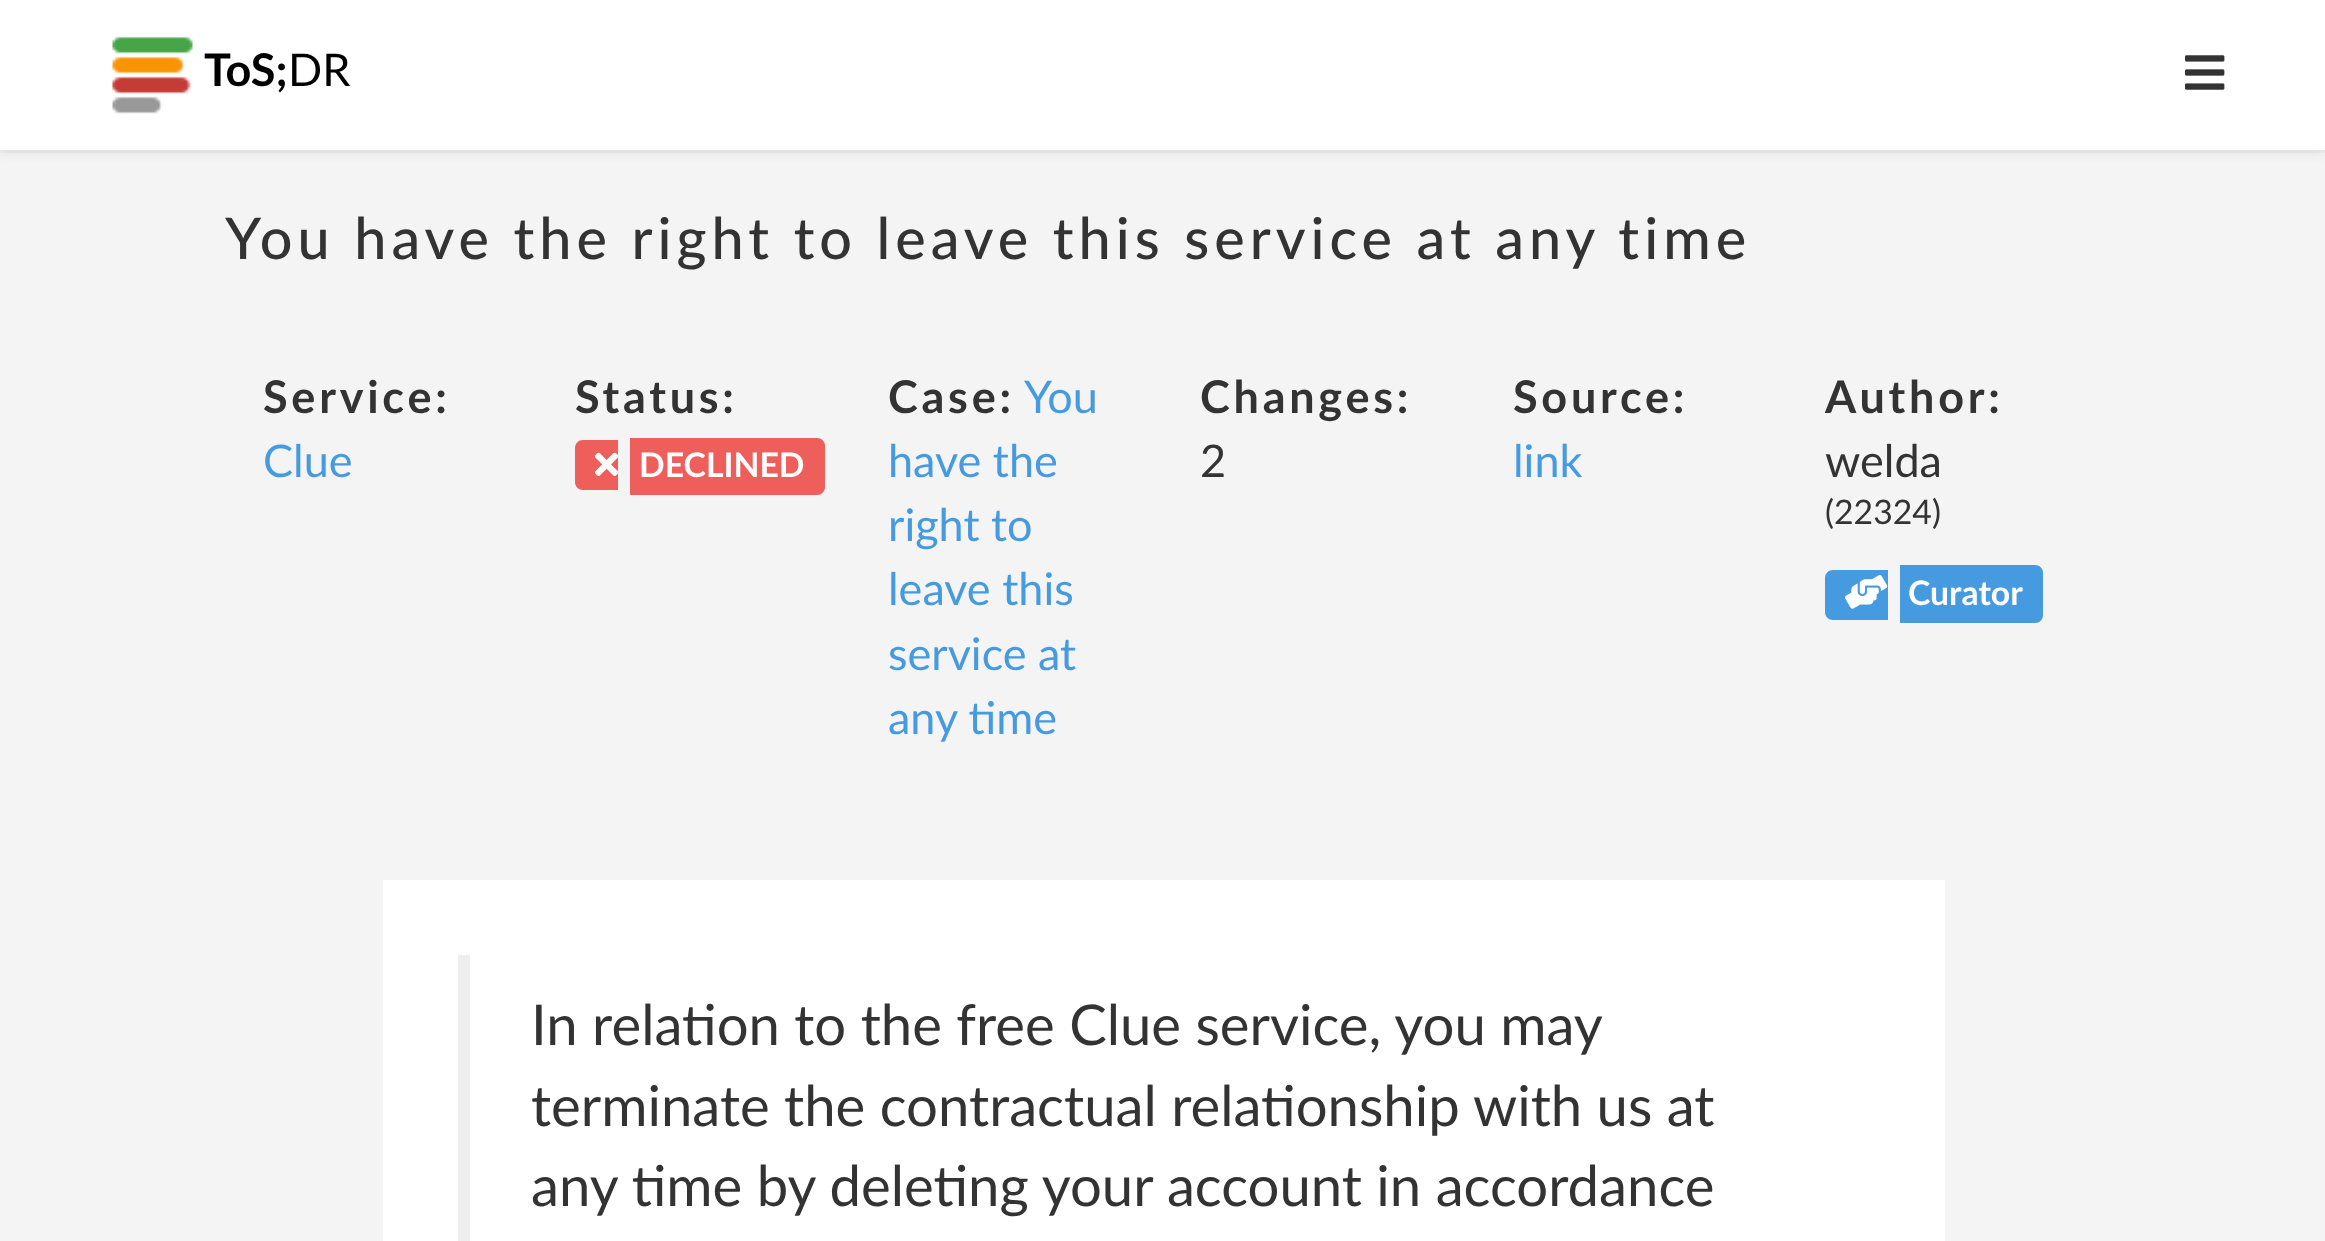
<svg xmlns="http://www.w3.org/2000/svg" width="2325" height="1241">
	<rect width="100%" height="100%" fill="#F4F4F4" />
	<rect x="0" y="150" width="2325" height="3" fill="#EDEDED" />
	<rect x="0" y="3" width="2325" height="150" fill="#000000" fill-opacity="0.07" filter="blur(6px)" />
	<rect x="0" y="0" width="2325" height="150" fill="#FFFFFF" />
	<image x="112" y="36" width="81" height="78" href="assets/img1.png" />
	<text x="204" y="86" font-family="Lato" font-size="45" font-weight="700" fill="#000000">ToS;</text>
	<text x="288" y="86" font-family="Lato" font-size="45" fill="#000000">DR</text>
	<image x="2185" y="55" width="40" height="35" href="assets/img2.png" />
	<text x="225" y="259" font-family="Lato" font-size="57.5" font-weight="500" letter-spacing="5" fill="#333333">You have the right to leave this service at any time</text>
	<text x="263" y="413" font-family="Lato" font-size="45" font-weight="700" letter-spacing="3.75" fill="#333333">Service:</text>
	<text x="263" y="477" font-family="Lato" font-size="45" fill="#469AE0">Clue</text>
	<text x="575" y="413" font-family="Lato" font-size="45" font-weight="700" letter-spacing="3.75" fill="#333333">Status:</text>
	<path d="M583 440H618V490H583C578.5 490 575 486.5 575 482V448C575 443.5 578.5 440 583 440Z" fill="#EE5F5B" />
	<path d="M630 438H817C821.5 438 825 441.5 825 446V487C825 491.5 821.5 495 817 495H630Z" fill="#EE5F5B" />
	<image x="595" y="452" width="23" height="24" href="assets/img3.png" />
	<text x="639" y="477" font-family="Lato" font-size="33.75" font-weight="700" fill="#FFFFFF">DECLINED</text>
	<text x="888" y="413" font-family="Lato" font-size="45" font-weight="700" letter-spacing="3.75" fill="#333333">Case:</text>
	<g font-family="Lato" font-size="45" fill="#469AE0">
		<text x="1024" y="413">You</text>
		<text x="888" y="477">have the</text>
		<text x="888" y="541">right to</text>
		<text x="888" y="605">leave this</text>
		<text x="888" y="670">service at</text>
		<text x="888" y="734">any time</text>
	</g>
	<text x="1200" y="413" font-family="Lato" font-size="45" font-weight="700" letter-spacing="3.75" fill="#333333">Changes:</text>
	<text x="1200" y="477" font-family="Lato" font-size="45" fill="#333333">2</text>
	<text x="1513" y="413" font-family="Lato" font-size="45" font-weight="700" letter-spacing="3.75" fill="#333333">Source:</text>
	<text x="1513" y="477" font-family="Lato" font-size="45" fill="#469AE0">link</text>
	<text x="1825" y="413" font-family="Lato" font-size="45" font-weight="700" letter-spacing="3.75" fill="#333333">Author:</text>
	<text x="1825" y="477" font-family="Lato" font-size="45" fill="#333333">welda</text>
	<text x="1825" y="524" font-family="Lato" font-size="33.75" fill="#333333">(22324)</text>
	<path d="M1833 570H1888V620H1833C1828.5 620 1825 616.5 1825 612V578C1825 573.5 1828.5 570 1833 570Z" fill="#469AE0" />
	<path d="M1900 565H2035C2039.5 565 2043 568.5 2043 573V615C2043 619.5 2039.5 623 2035 623H1900Z" fill="#469AE0" />
	<image x="1845" y="575" width="43" height="34" href="assets/img4.png" />
	<text x="1908" y="605" font-family="Lato" font-size="33.75" font-weight="700" fill="#FFFFFF">Curator</text>
	<rect x="383" y="880" width="1562" height="361" fill="#FFFFFF" />
	<rect x="458" y="955" width="12" height="286" fill="#EEEEEE" />
	<g font-family="Lato" font-size="56.25" fill="#333333">
		<text x="531" y="1045">In relation to the free Clue service, you may</text>
		<text x="531" y="1126">terminate the contractual relationship with us at</text>
		<text x="531" y="1206">any time by deleting your account in accordance</text>
	</g>
</svg>
